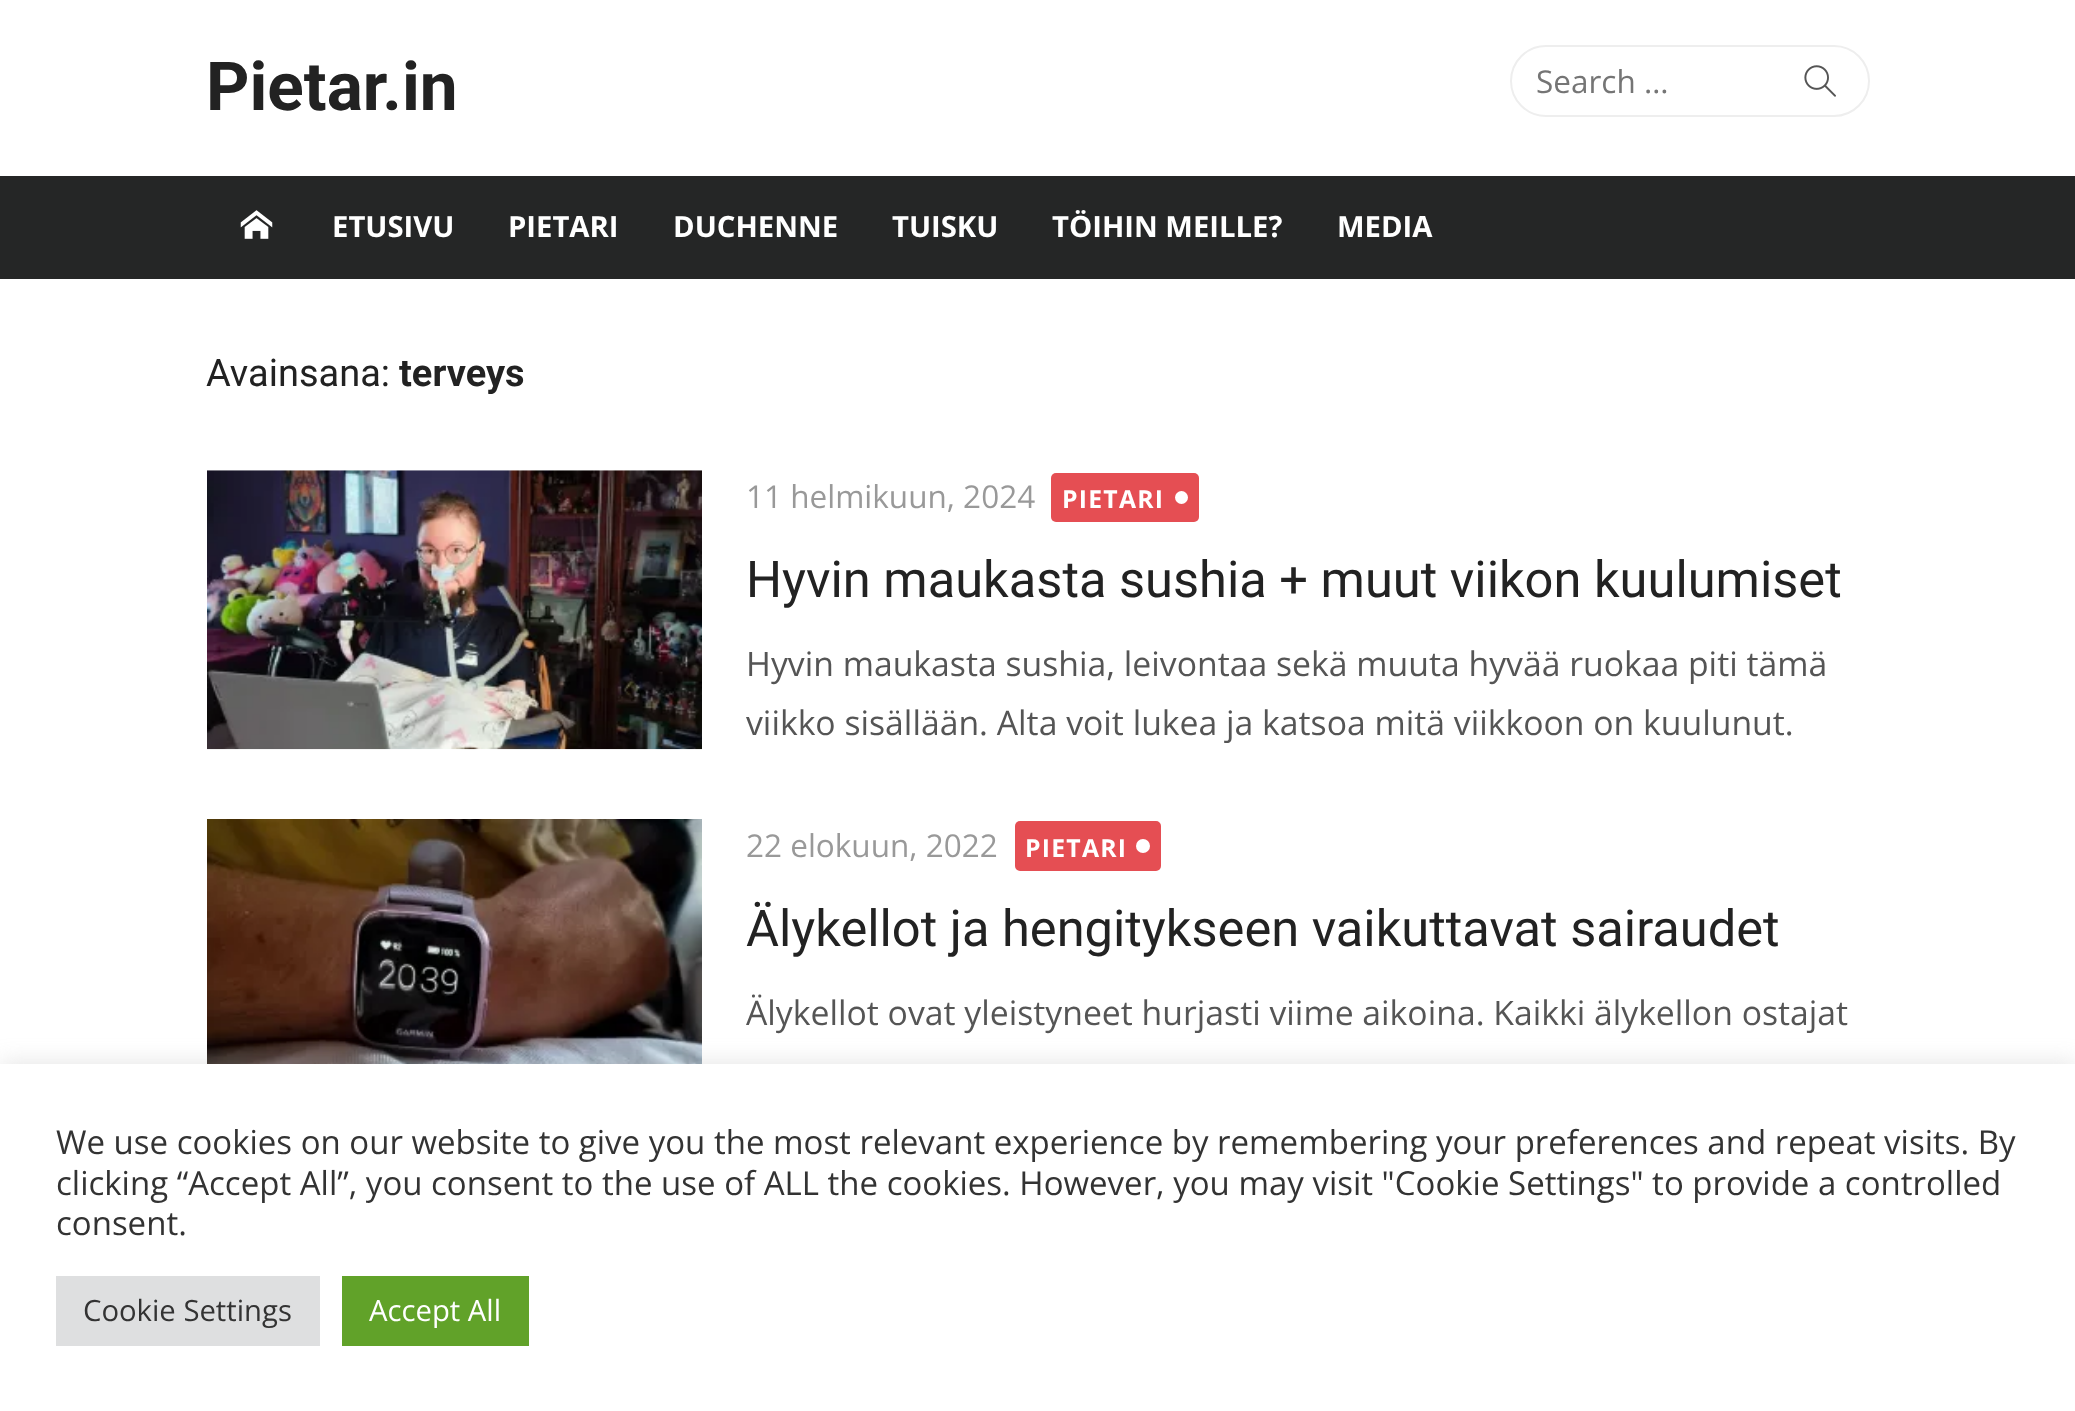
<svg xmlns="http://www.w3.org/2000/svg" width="2075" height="1411">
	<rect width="100%" height="100%" fill="#FFFFFF" />
	<text x="206" y="110" font-family="Roboto" font-size="67.5" font-weight="700" fill="#222222">Pietar.in</text>
	<rect x="1511" y="46" width="358" height="70" rx="35" fill="none" stroke="#EEEEEE" stroke-width="2" />
	<text x="1536" y="93" font-family="Open Sans" font-size="31.5" fill="#757575">Search …</text>
	<image x="1804" y="65" width="32" height="32" href="assets/img1.png" />
	<rect x="0" y="176" width="2075" height="103" fill="#252626" />
	<image x="240" y="210" width="33" height="29" href="assets/img2.png" />
	<g font-family="Open Sans" font-size="29.25" font-weight="700" fill="#FFFFFF">
		<text x="332" y="237">ETUSIVU</text>
		<text x="508" y="237">PIETARI</text>
		<text x="673" y="237">DUCHENNE</text>
		<text x="892" y="237">TUISKU</text>
		<text x="1052" y="237">TÖIHIN MEILLE?</text>
		<text x="1337" y="237">MEDIA</text>
	</g>
	<text x="206" y="386" font-family="Roboto" font-size="38" fill="#222222">Avainsana:</text>
	<text x="399" y="386" font-family="Roboto" font-size="38" font-weight="700" fill="#222222">terveys</text>
	<image x="207" y="470" width="495" height="280" href="assets/img3.png" />
	<text x="746" y="508" font-family="Open Sans" font-size="31.5" fill="#999999">11 helmikuun, 2024</text>
	<rect x="1051" y="473" width="148" height="49" rx="5" fill="#E54E53" />
	<text x="1062" y="508" font-family="Open Sans" font-size="24.75" font-weight="700" letter-spacing="1.25" fill="#FFFFFF">PIETARI</text>
	<circle cx="1181.5" cy="497.5" r="6.5" fill="#FFFFFF" />
	<text x="746" y="597" font-family="Roboto" font-size="50.6" fill="#222222">Hyvin maukasta sushia + muut viikon kuulumiset</text>
	<g font-family="Open Sans" font-size="33.75" fill="#555555">
		<text x="746" y="676">Hyvin maukasta sushia, leivontaa sekä muuta hyvää ruokaa piti tämä</text>
		<text x="746" y="735">viikko sisällään. Alta voit lukea ja katsoa mitä viikkoon on kuulunut.</text>
	</g>
	<image x="207" y="819" width="495" height="245" href="assets/img4.png" />
	<text x="746" y="857" font-family="Open Sans" font-size="31.5" fill="#999999">22 elokuun, 2022</text>
	<rect x="1015" y="821" width="146" height="50" rx="5" fill="#E54E53" />
	<text x="1025" y="857" font-family="Open Sans" font-size="24.75" font-weight="700" letter-spacing="1.25" fill="#FFFFFF">PIETARI</text>
	<circle cx="1143" cy="846" r="7" fill="#FFFFFF" />
	<text x="746" y="946" font-family="Roboto" font-size="50.6" fill="#222222">Älykellot ja hengitykseen vaikuttavat sairaudet</text>
	<text x="746" y="1025" font-family="Open Sans" font-size="33.75" fill="#555555">Älykellot ovat yleistyneet hurjasti viime aikoina. Kaikki älykellon ostajat</text>
	<rect x="0" y="1062" width="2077" height="349" fill="#ACABAB" fill-opacity="0.3" filter="blur(11px)" />
	<rect x="0" y="1064" width="2075" height="347" fill="#FFFFFF" />
	<g font-family="Open Sans" font-size="33" fill="#333333">
		<text x="56" y="1154">We use cookies on our website to give you the most relevant experience by remembering your preferences and repeat visits. By</text>
		<text x="56" y="1195">clicking “Accept All”, you consent to the use of ALL the cookies. However, you may visit "Cookie Settings" to provide a controlled</text>
		<text x="56" y="1235">consent.</text>
	</g>
	<rect x="56" y="1276" width="264" height="70" fill="#DEDFE0" />
	<text x="83" y="1321" font-family="Open Sans" font-size="29.25" fill="#333333">Cookie Settings</text>
	<rect x="342" y="1276" width="187" height="70" fill="#61A229" />
	<text x="369" y="1321" font-family="Open Sans" font-size="29.25" fill="#FFFFFF">Accept All</text>
</svg>
